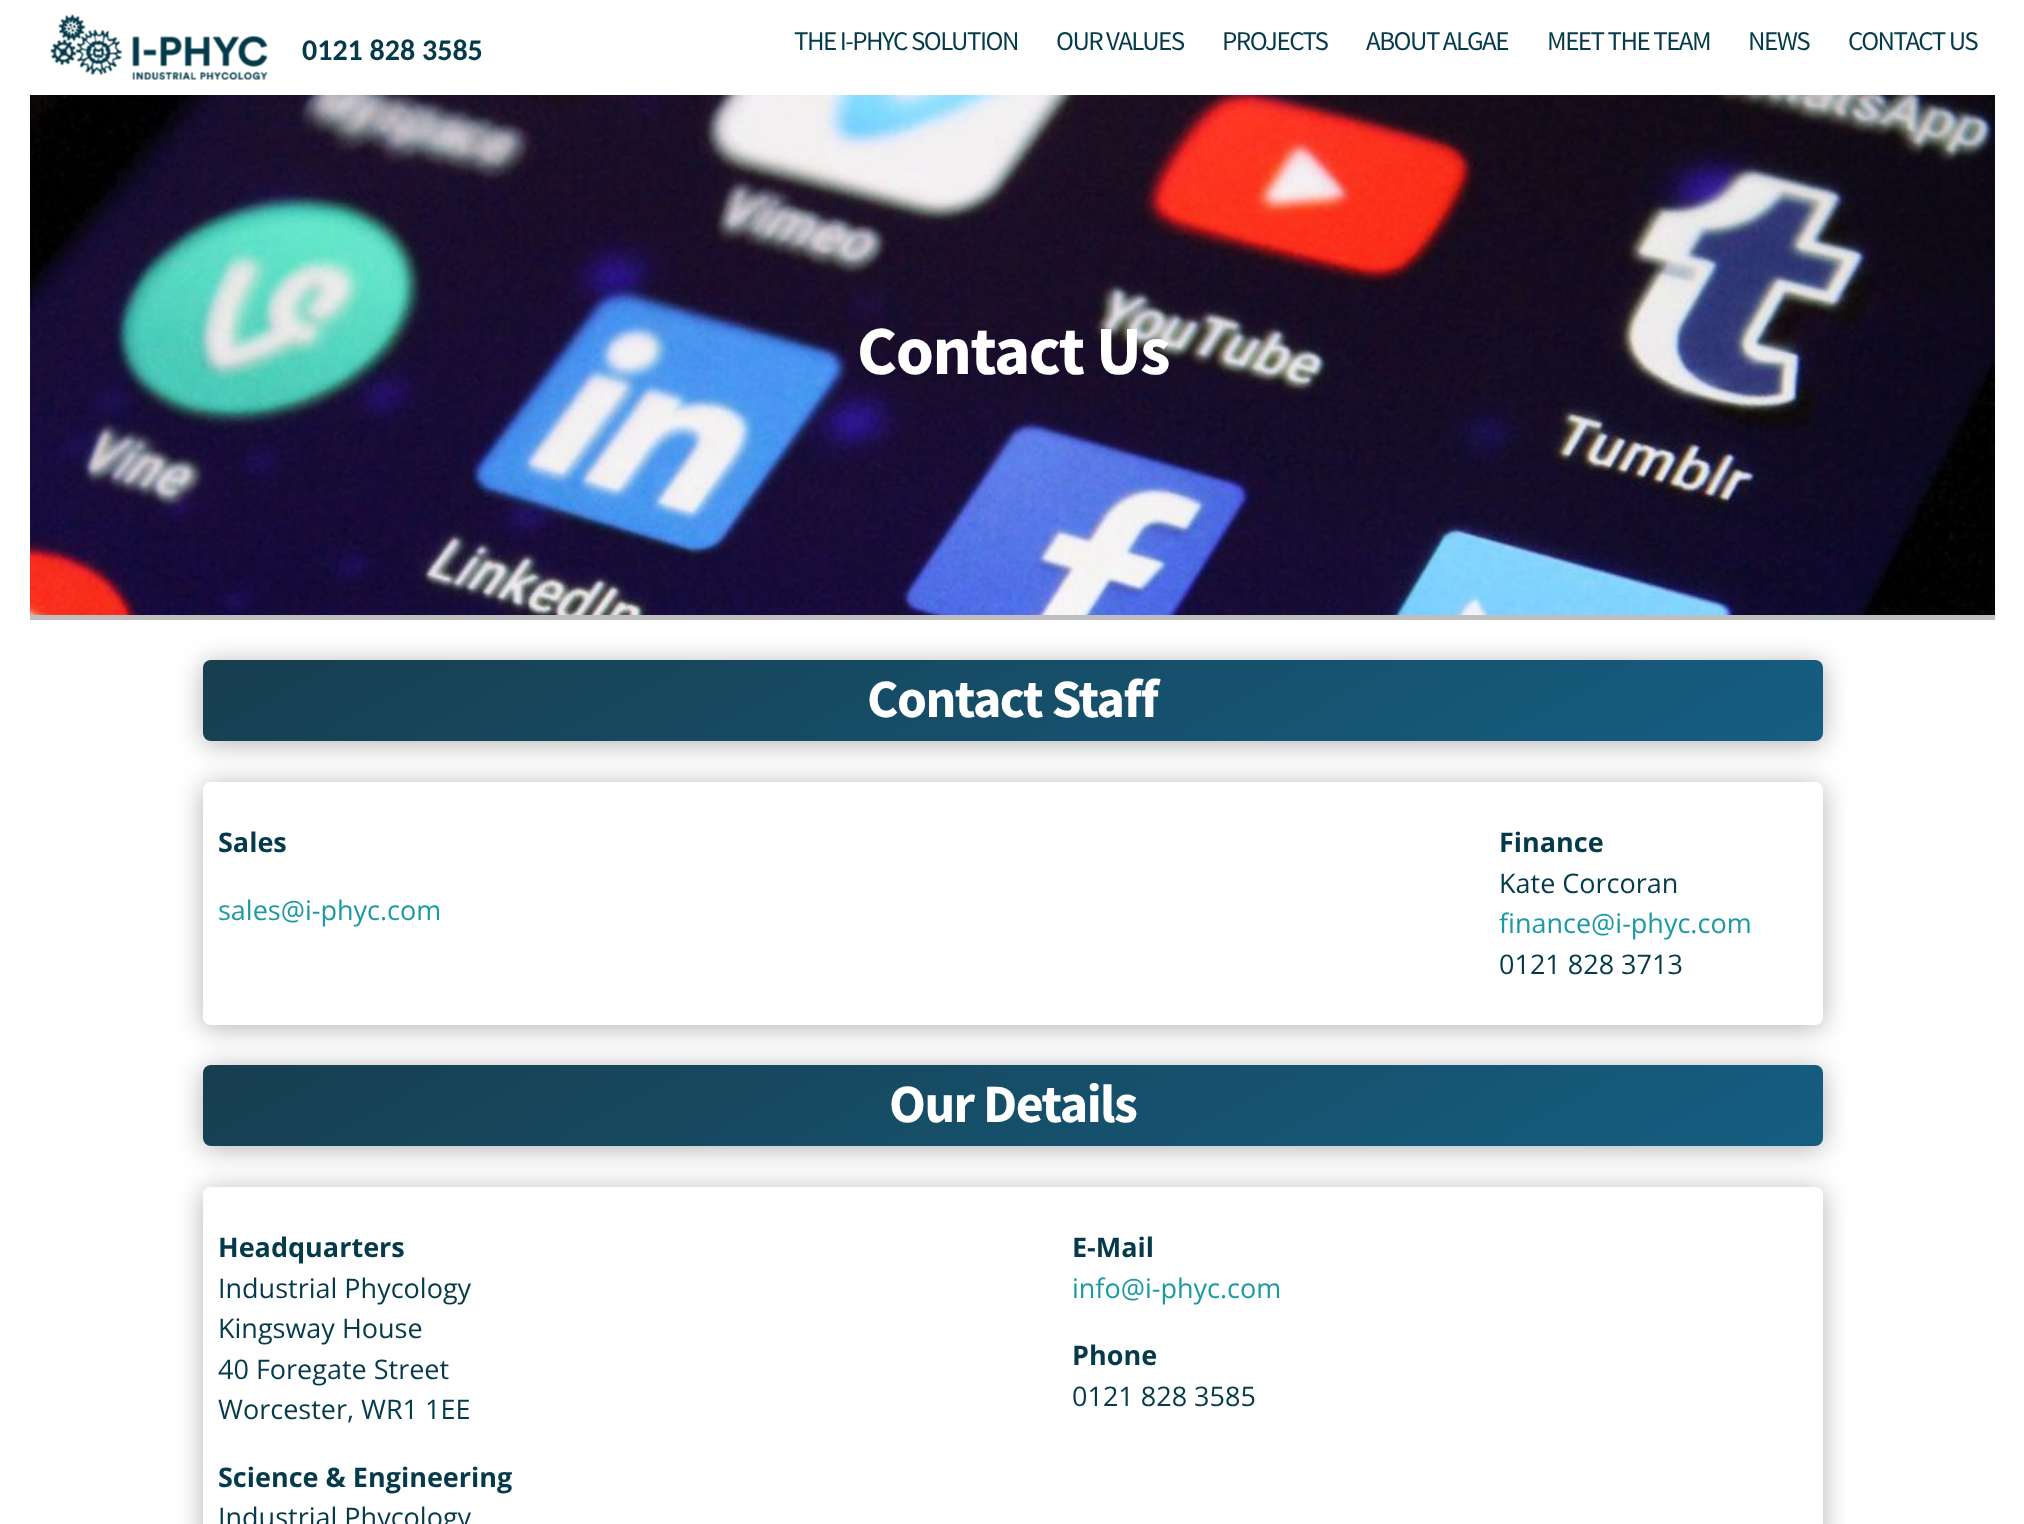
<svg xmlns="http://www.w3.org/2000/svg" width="2024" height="1524">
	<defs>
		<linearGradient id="g1" gradientUnits="userSpaceOnUse" x1="817" y1="333" x2="1208" y2="1068"><stop offset="0" stop-color="#173E4F" /><stop offset="1" stop-color="#155E82" /></linearGradient>
		<clipPath id="clip1"><path d="M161 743H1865V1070H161ZM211 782H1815C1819.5 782 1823 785.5 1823 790V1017C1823 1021.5 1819.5 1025 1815 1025H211C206.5 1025 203 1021.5 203 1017V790C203 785.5 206.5 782 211 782Z" clip-rule="evenodd" /></clipPath>
		<linearGradient id="g2" gradientUnits="userSpaceOnUse" x1="817" y1="738" x2="1208" y2="1473"><stop offset="0" stop-color="#173E4F" /><stop offset="1" stop-color="#155E82" /></linearGradient>
		<clipPath id="clip2"><path d="M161 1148H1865V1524H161ZM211 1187H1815C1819.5 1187 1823 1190.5 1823 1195V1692C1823 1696.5 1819.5 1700 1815 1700H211C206.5 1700 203 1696.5 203 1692V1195C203 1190.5 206.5 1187 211 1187Z" clip-rule="evenodd" /></clipPath>
	</defs>
	<rect width="100%" height="100%" fill="#FFFFFF" />
	<image x="50" y="14" width="218" height="66" href="assets/img1.png" />
	<text x="302" y="60" font-family="Carlito" font-size="30" font-weight="700" fill="#053A4A">0121 828 3585</text>
	<g font-family="Source Sans Pro" font-size="27" letter-spacing="-1.5" fill="#053A4A">
		<text x="794" y="50">THE I-PHYC SOLUTION</text>
		<text x="1056" y="50">OUR VALUES</text>
		<text x="1222" y="50">PROJECTS</text>
		<text x="1366" y="50">ABOUT ALGAE</text>
		<text x="1547" y="50">MEET THE TEAM</text>
		<text x="1748" y="50">NEWS</text>
		<text x="1848" y="50">CONTACT US</text>
	</g>
	<rect x="30" y="615" width="1965" height="5" fill="#BFBFBF" />
	<image x="30" y="95" width="1965" height="520" href="assets/img2.png" />
	<text x="857" y="374" font-family="Source Sans Pro" font-size="69" font-weight="700" letter-spacing="-1.5" fill="#FFFFFF">Contact Us</text>
	<rect x="203" y="663" width="1620" height="81" rx="8" fill="#000000" fill-opacity="0.3" filter="blur(13.5px)" />
	<rect x="203" y="660" width="1620" height="81" rx="8" fill="url(#g1)" />
	<text x="867" y="717" font-family="Source Sans Pro" font-size="54" font-weight="700" letter-spacing="-1.5" fill="#FFFFFF">Contact Staff</text>
	<g clip-path="url(#clip1)">
		<rect x="203" y="785" width="1620" height="243" rx="8" fill="#000000" fill-opacity="0.3" filter="blur(13.5px)" />
	</g>
	<text x="218" y="852" font-family="Open Sans" font-size="27" font-weight="700" fill="#053A4A">Sales</text>
	<text x="218" y="920" font-family="Open Sans" font-size="27" fill="#1B9AA3">sales@i-phyc.com</text>
	<text x="1499" y="852" font-family="Open Sans" font-size="27" font-weight="700" fill="#053A4A">Finance</text>
	<text x="1499" y="893" font-family="Open Sans" font-size="27" fill="#053A4A">Kate Corcoran</text>
	<text x="1499" y="933" font-family="Open Sans" font-size="27" fill="#1B9AA3">finance@i-phyc.com</text>
	<text x="1499" y="974" font-family="Open Sans" font-size="27" fill="#053A4A">0121 828 3713</text>
	<rect x="203" y="1068" width="1620" height="81" rx="8" fill="#000000" fill-opacity="0.3" filter="blur(13.5px)" />
	<rect x="203" y="1065" width="1620" height="81" rx="8" fill="url(#g2)" />
	<text x="889" y="1122" font-family="Source Sans Pro" font-size="54" font-weight="700" letter-spacing="-1.5" fill="#FFFFFF">Our Details</text>
	<g clip-path="url(#clip2)">
		<rect x="203" y="1190" width="1620" height="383" rx="8" fill="#000000" fill-opacity="0.3" filter="blur(13.5px)" />
	</g>
	<text x="218" y="1257" font-family="Open Sans" font-size="27" font-weight="700" fill="#053A4A">Headquarters</text>
	<g font-family="Open Sans" font-size="27" fill="#053A4A">
		<text x="218" y="1298">Industrial Phycology</text>
		<text x="218" y="1338">Kingsway House</text>
		<text x="218" y="1379">40 Foregate Street</text>
		<text x="218" y="1419">Worcester, WR1 1EE</text>
	</g>
	<text x="218" y="1487" font-family="Open Sans" font-size="27" font-weight="700" fill="#053A4A">Science &amp; Engineering</text>
	<text x="218" y="1527" font-family="Open Sans" font-size="27" fill="#053A4A">Industrial Phycology</text>
	<text x="1072" y="1257" font-family="Open Sans" font-size="27" font-weight="700" fill="#053A4A">E-Mail</text>
	<text x="1072" y="1298" font-family="Open Sans" font-size="27" fill="#1B9AA3">info@i-phyc.com</text>
	<text x="1072" y="1365" font-family="Open Sans" font-size="27" font-weight="700" fill="#053A4A">Phone</text>
	<text x="1072" y="1406" font-family="Open Sans" font-size="27" fill="#053A4A">0121 828 3585</text>
</svg>
